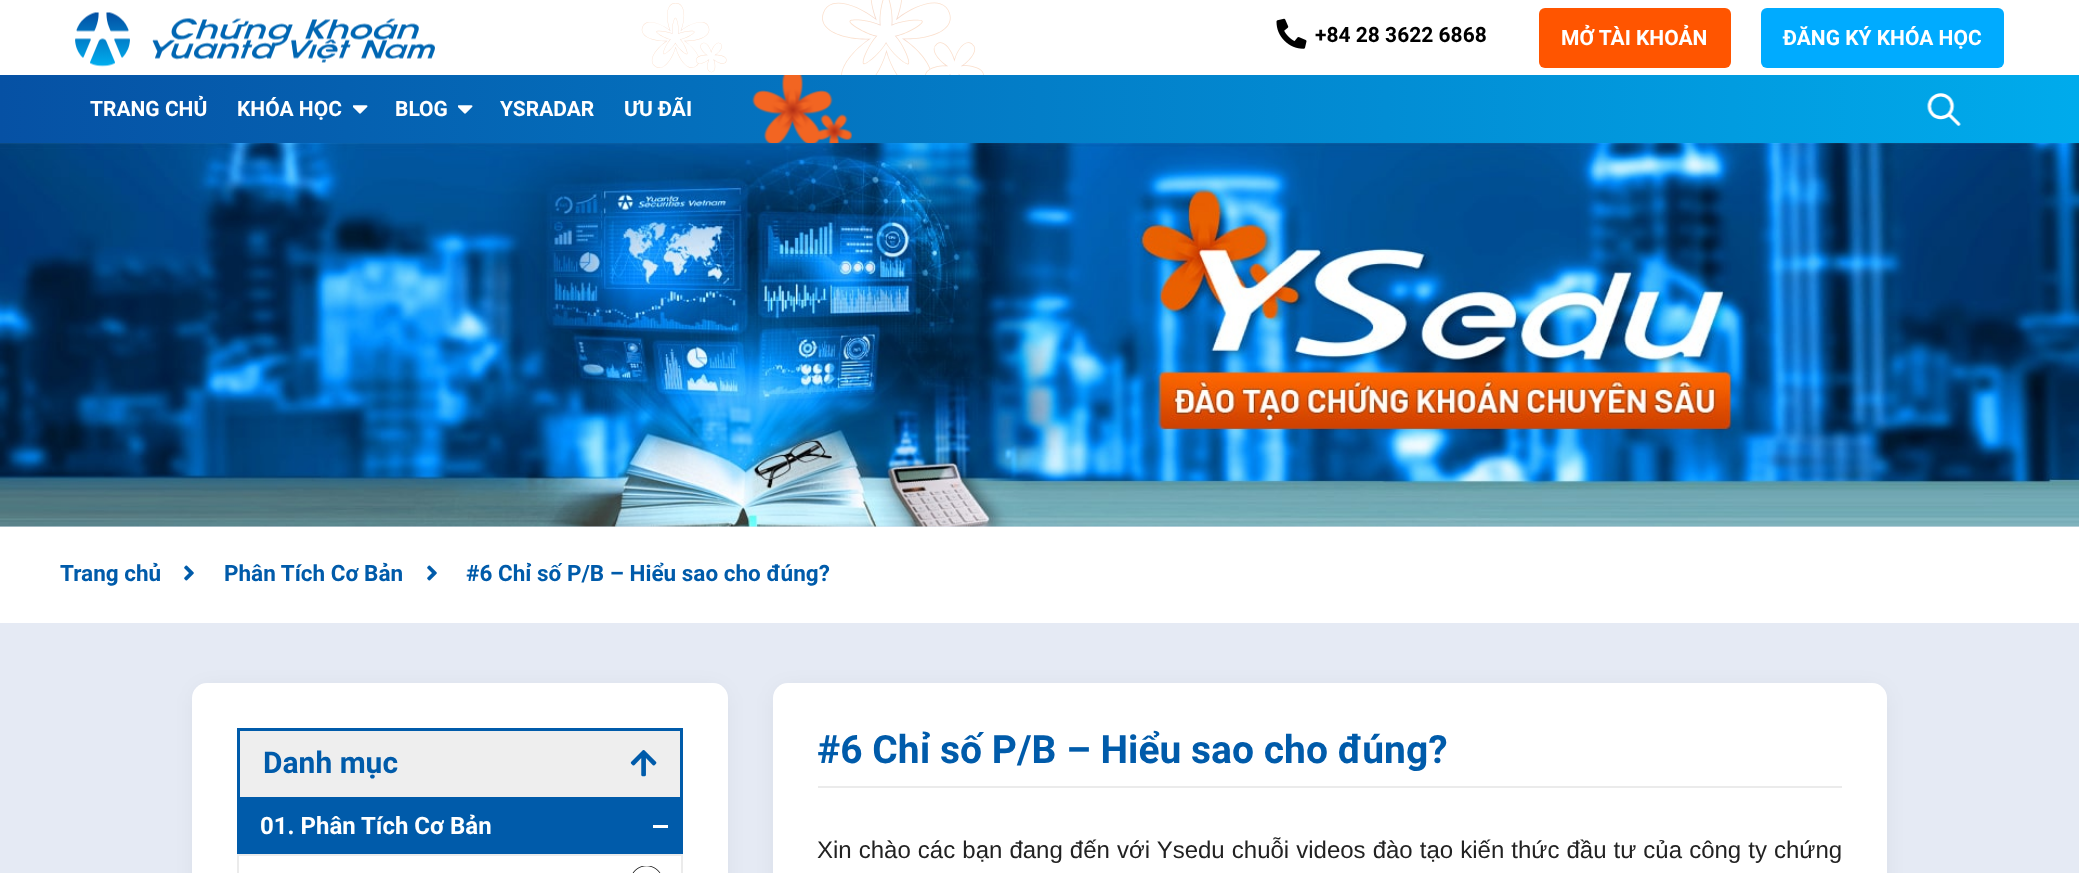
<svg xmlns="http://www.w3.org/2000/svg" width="2079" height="873">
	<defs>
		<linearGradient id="g1" gradientUnits="userSpaceOnUse" x1="0" y1="109" x2="2079" y2="109"><stop offset="0" stop-color="#0651A4" /><stop offset="1" stop-color="#00ABEC" /></linearGradient>
	</defs>
	<rect width="100%" height="100%" fill="#E5EAF4" />
	<rect x="0" y="0" width="2079" height="75" fill="#FFFFFF" />
	<image x="641" y="0" width="343" height="75" href="assets/img1.png" />
	<image x="75" y="12" width="360" height="55" href="assets/img2.png" />
	<image x="1276" y="18" width="31" height="31" href="assets/img3.png" />
	<text x="1315" y="42" font-family="Roboto" font-size="21" font-weight="700" fill="#000000">+84 28 3622 6868</text>
	<rect x="1539" y="8" width="192" height="60" rx="6" fill="#FF5500" />
	<text x="1561" y="45" font-family="Roboto" font-size="21" font-weight="700" fill="#FFFFFF">MỞ TÀI KHOẢN</text>
	<rect x="1761" y="8" width="243" height="60" rx="6" fill="#00ABFF" />
	<text x="1783" y="45" font-family="Roboto" font-size="21" font-weight="700" fill="#FFFFFF">ĐĂNG KÝ KHÓA HỌC</text>
	<rect x="0" y="75" width="2079" height="68" fill="url(#g1)" />
	<g font-family="Roboto" font-size="21" font-weight="700" fill="#FFFFFF">
		<text x="90" y="116">TRANG CHỦ</text>
		<text x="237" y="116">KHÓA HỌC</text>
	</g>
	<image x="353" y="105" width="15" height="9" href="assets/img4.png" />
	<text x="395" y="116" font-family="Roboto" font-size="21" font-weight="700" fill="#FFFFFF">BLOG</text>
	<image x="458" y="105" width="15" height="9" href="assets/img5.png" />
	<g font-family="Roboto" font-size="21" font-weight="700" fill="#FFFFFF">
		<text x="500" y="116">YSRADAR</text>
		<text x="624" y="116">ƯU ĐÃI</text>
	</g>
	<image x="752" y="75" width="100" height="68" href="assets/img6.png" />
	<image x="1927" y="93" width="34" height="33" href="assets/img7.png" />
	<image x="0" y="143" width="2079" height="384" href="assets/img8.png" />
	<rect x="0" y="527" width="2079" height="96" fill="#FFFFFF" />
	<text x="60" y="581" font-family="Roboto" font-size="22.5" font-weight="700" fill="#005BAA">Trang chủ</text>
	<image x="184" y="565" width="10" height="16" href="assets/img9.png" />
	<text x="224" y="581" font-family="Roboto" font-size="22.5" font-weight="700" fill="#005BAA">Phân Tích Cơ Bản</text>
	<image x="427" y="565" width="10" height="16" href="assets/img9.png" />
	<text x="466" y="581" font-family="Roboto" font-size="22.5" font-weight="700" fill="#005BAA">#6 Chỉ số P/B – Hiểu sao cho đúng?</text>
	<rect x="197" y="690" width="526" height="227" rx="11" fill="#000000" fill-opacity="0.07" filter="blur(11px)" />
	<rect x="192" y="683" width="536" height="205" rx="15" fill="#FFFFFF" />
	<rect x="238.5" y="729.5" width="443" height="69" fill="#EEEEEE" stroke="#005BAA" stroke-width="3" />
	<text x="263" y="773" font-family="Roboto" font-size="30" font-weight="700" fill="#005BAA">Danh mục</text>
	<image x="630" y="750" width="27" height="27" href="assets/img10.png" />
	<rect x="237" y="800" width="446" height="54" fill="#005BAA" />
	<text x="260" y="834" font-family="Roboto" font-size="24" font-weight="700" fill="#FFFFFF">01. Phân Tích Cơ Bản</text>
	<rect x="653" y="825" width="15" height="3" fill="#FFFFFF" />
	<rect x="238" y="855" width="444" height="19" fill="none" stroke="#EBEBEB" stroke-width="2" />
	<image x="632" y="866" width="29" height="7" href="assets/img11.png" />
	<rect x="777" y="690" width="1106" height="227" rx="11" fill="#000000" fill-opacity="0.07" filter="blur(11px)" />
	<rect x="773" y="683" width="1114" height="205" rx="15" fill="#FFFFFF" />
	<rect x="818" y="786" width="1024" height="2" fill="#EBEBEB" />
	<text x="817" y="763" font-family="Roboto" font-size="39" font-weight="700" fill="#005BAA">#6 Chỉ số P/B – Hiểu sao cho đúng?</text>
	<text x="817" y="858" word-spacing="0.4" font-family="Liberation Sans" font-size="24" fill="#222222">Xin chào các bạn đang đến với Ysedu chuỗi videos đào tạo kiến thức đầu tư của công ty chứng</text>
</svg>
